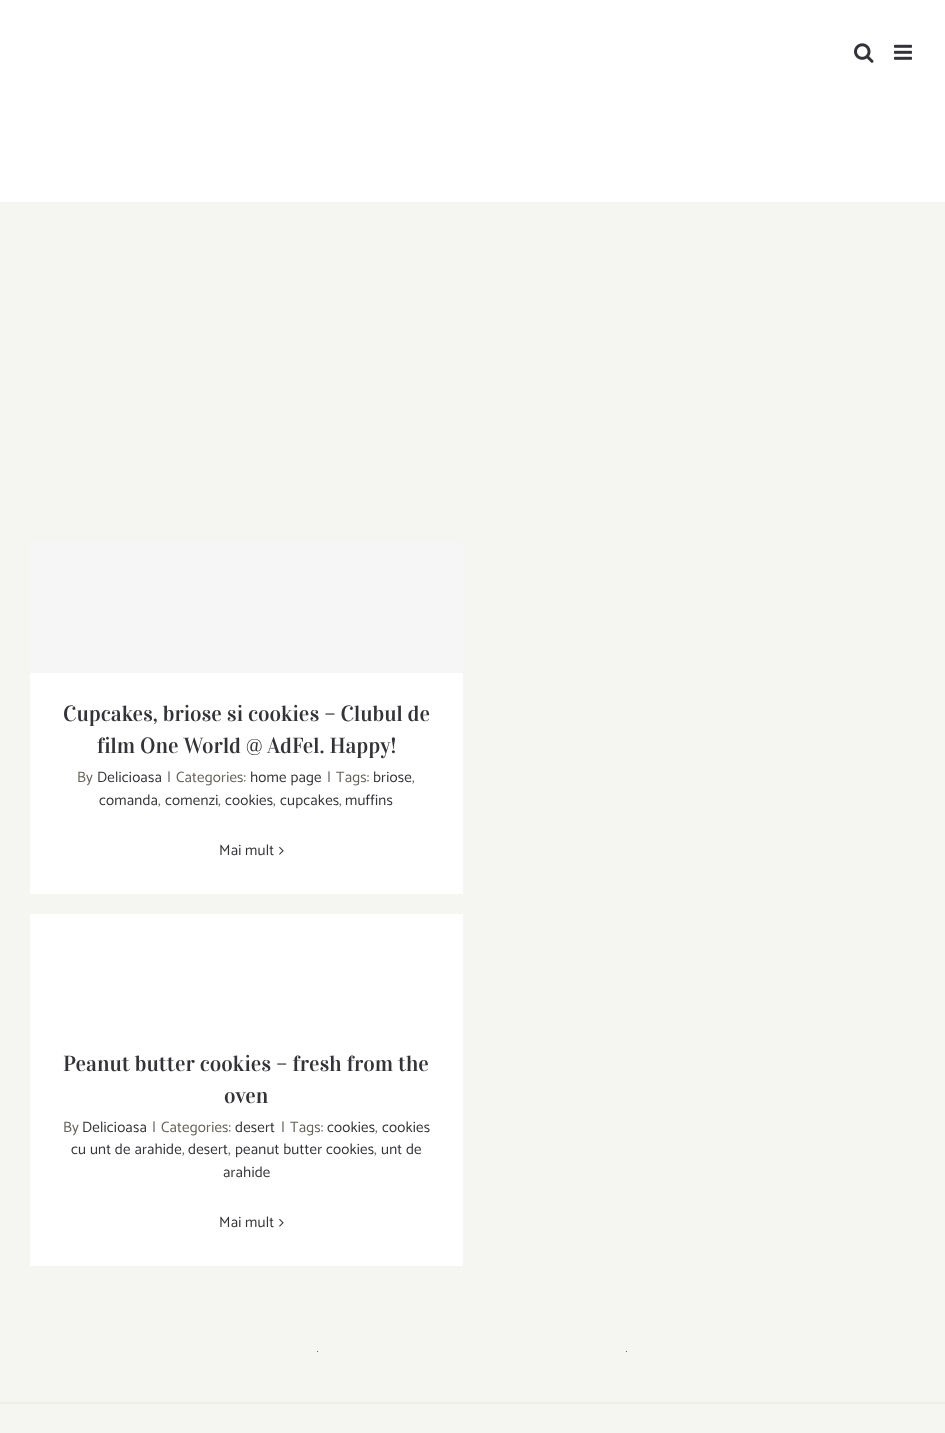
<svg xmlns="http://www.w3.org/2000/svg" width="945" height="1433">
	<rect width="100%" height="100%" fill="#F5F5F1" />
	<rect x="0" y="0" width="945" height="202" fill="#FFFFFF" />
	<image x="854" y="43" width="20" height="20" href="assets/img1.png" />
	<image x="894" y="44" width="18" height="16" href="assets/img2.png" />
	<rect x="30" y="542" width="433" height="131" fill="#F6F6F6" />
	<rect x="30" y="673" width="433" height="221" fill="#FFFFFF" />
	<g font-family="Vidaloka" font-size="22" fill="#333338">
		<text x="63" y="721">Cupcakes, briose si cookies – Clubul de</text>
		<text x="97" y="753">film One World @ AdFel. Happy!</text>
	</g>
	<text x="77" y="782" font-family="Catamaran" font-size="15" letter-spacing="0.2" fill="#67615A">By</text>
	<text x="97" y="782" font-family="Catamaran" font-size="15" letter-spacing="0.2" fill="#333338">Delicioasa</text>
	<g font-family="Catamaran" font-size="15" letter-spacing="0.2" fill="#67615A">
		<text x="167" y="782">|</text>
		<text x="176" y="782">Categories:</text>
	</g>
	<text x="250" y="782" font-family="Catamaran" font-size="15" letter-spacing="0.2" fill="#333338">home page</text>
	<g font-family="Catamaran" font-size="15" letter-spacing="0.2" fill="#67615A">
		<text x="327" y="782">|</text>
		<text x="336" y="782">Tags:</text>
	</g>
	<text x="373" y="782" font-family="Catamaran" font-size="15" letter-spacing="0.2" fill="#333338">briose</text>
	<text x="412" y="782" font-family="Catamaran" font-size="15" letter-spacing="0.2" fill="#67615A">,</text>
	<text x="99" y="805" font-family="Catamaran" font-size="15" letter-spacing="0.2" fill="#333338">comanda</text>
	<text x="158" y="805" font-family="Catamaran" font-size="15" letter-spacing="0.2" fill="#67615A">,</text>
	<text x="165" y="805" font-family="Catamaran" font-size="15" letter-spacing="0.2" fill="#333338">comenzi</text>
	<text x="218" y="805" font-family="Catamaran" font-size="15" letter-spacing="0.2" fill="#67615A">,</text>
	<text x="225" y="805" font-family="Catamaran" font-size="15" letter-spacing="0.2" fill="#333338">cookies</text>
	<text x="273" y="805" font-family="Catamaran" font-size="15" letter-spacing="0.2" fill="#67615A">,</text>
	<text x="280" y="805" font-family="Catamaran" font-size="15" letter-spacing="0.2" fill="#333338">cupcakes</text>
	<text x="339" y="805" font-family="Catamaran" font-size="15" letter-spacing="0.2" fill="#67615A">,</text>
	<g font-family="Catamaran" font-size="15" letter-spacing="0.2" fill="#333338">
		<text x="345" y="805">muffins</text>
		<text x="219" y="855">Mai mult</text>
	</g>
	<image x="279" y="846" width="5" height="9" href="assets/img3.png" />
	<rect x="30" y="914" width="433" height="352" fill="#FFFFFF" />
	<g font-family="Vidaloka" font-size="22" fill="#333338">
		<text x="63" y="1071">Peanut butter cookies – fresh from the</text>
		<text x="224" y="1103">oven</text>
	</g>
	<text x="63" y="1132" font-family="Catamaran" font-size="15" letter-spacing="0.2" fill="#67615A">By</text>
	<text x="82" y="1132" font-family="Catamaran" font-size="15" letter-spacing="0.2" fill="#333338">Delicioasa</text>
	<g font-family="Catamaran" font-size="15" letter-spacing="0.2" fill="#67615A">
		<text x="152" y="1132">|</text>
		<text x="161" y="1132">Categories:</text>
	</g>
	<text x="235" y="1132" font-family="Catamaran" font-size="15" letter-spacing="0.2" fill="#333338">desert</text>
	<g font-family="Catamaran" font-size="15" letter-spacing="0.2" fill="#67615A">
		<text x="281" y="1132">|</text>
		<text x="290" y="1132">Tags:</text>
	</g>
	<text x="327" y="1132" font-family="Catamaran" font-size="15" letter-spacing="0.2" fill="#333338">cookies</text>
	<text x="375" y="1132" font-family="Catamaran" font-size="15" letter-spacing="0.2" fill="#67615A">,</text>
	<g font-family="Catamaran" font-size="15" letter-spacing="0.2" fill="#333338">
		<text x="382" y="1132">cookies</text>
		<text x="71" y="1154">cu unt de arahide</text>
	</g>
	<text x="182" y="1154" font-family="Catamaran" font-size="15" letter-spacing="0.2" fill="#67615A">,</text>
	<text x="188" y="1154" font-family="Catamaran" font-size="15" letter-spacing="0.2" fill="#333338">desert</text>
	<text x="228" y="1154" font-family="Catamaran" font-size="15" letter-spacing="0.2" fill="#67615A">,</text>
	<text x="235" y="1154" font-family="Catamaran" font-size="15" letter-spacing="0.2" fill="#333338">peanut butter cookies</text>
	<text x="374" y="1154" font-family="Catamaran" font-size="15" letter-spacing="0.2" fill="#67615A">,</text>
	<g font-family="Catamaran" font-size="15" letter-spacing="0.2" fill="#333338">
		<text x="381" y="1154">unt de</text>
		<text x="223" y="1177">arahide</text>
		<text x="219" y="1227">Mai mult</text>
	</g>
	<image x="279" y="1218" width="5" height="9" href="assets/img3.png" />
	<rect x="317" y="1351" width="1" height="1" fill="#67615A" />
	<rect x="626" y="1351" width="1" height="1" fill="#67615A" />
	<rect x="0" y="1402" width="945" height="2" fill="#EEEEE8" />
</svg>
